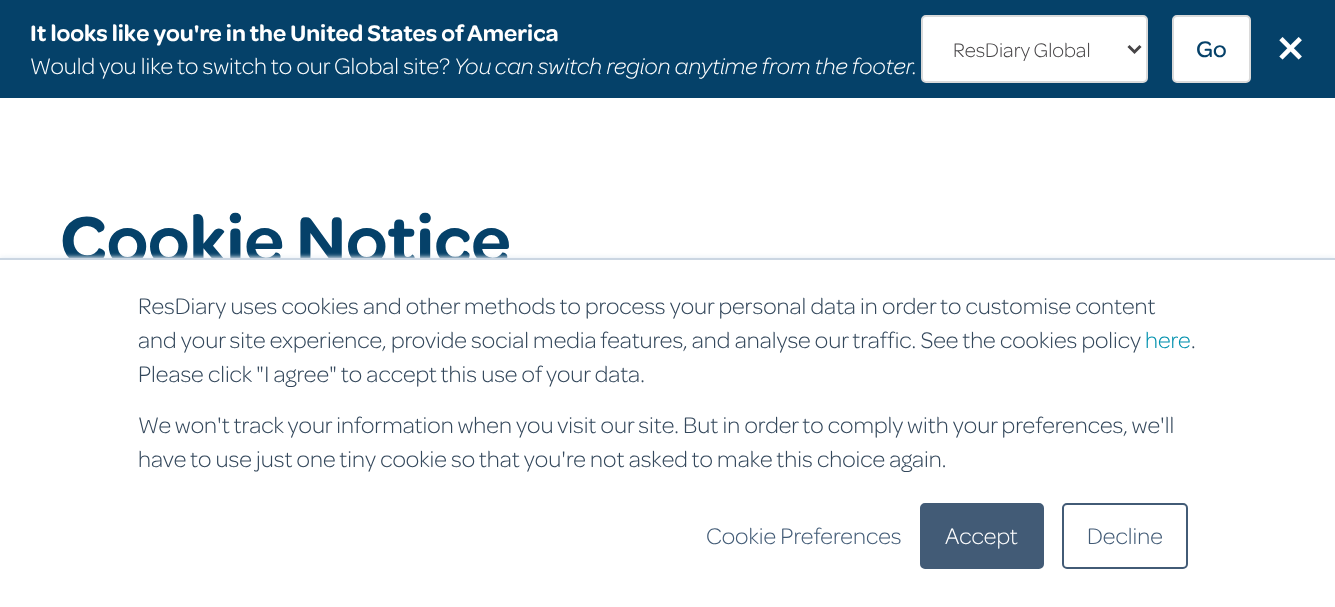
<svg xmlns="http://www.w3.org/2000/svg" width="1335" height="607">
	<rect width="100%" height="100%" fill="#FFFFFF" />
	<rect x="0" y="0" width="1335" height="98" fill="#054169" />
	<text x="30" y="41" font-family="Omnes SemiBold" font-size="24" font-weight="600" fill="#FFFFFF">It looks like you're in the United States of America</text>
	<text x="30" y="74" font-family="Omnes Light" font-size="24" font-weight="300" fill="#FFFFFF">Would you like to switch to our Global site?</text>
	<text x="454" y="74" font-family="Omnes Light" font-size="24" font-weight="300" font-style="italic" fill="#FFFFFF">You can switch region anytime from the footer.</text>
	<rect x="922" y="16" width="225" height="66" rx="4" fill="#FFFFFF" stroke="#DADADA" stroke-width="2" />
	<path d="M1128.5 46L1134.5 52L1140.5 46" fill="none" stroke="#474547" stroke-width="3" />
	<text x="953" y="57" font-family="Omnes Light" font-size="21" font-weight="300" fill="#474547">ResDiary Global</text>
	<rect x="1173" y="16" width="77" height="66" rx="4" fill="#FFFFFF" stroke="#DADADA" stroke-width="2" />
	<text x="1196" y="57" font-family="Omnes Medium" font-size="24" font-weight="500" fill="#054169">Go</text>
	<text x="1275" y="62" font-family="DejaVu Sans" font-size="36" font-weight="700" fill="#FFFFFF">✕</text>
	<text x="60" y="264" font-family="Omnes SemiBold" font-size="72" font-weight="600" fill="#054169">Cookie Notice</text>
	<rect x="0" y="257" width="1335" height="349" fill="#EAF0F6" filter="blur(2px)" />
	<rect x="0" y="260" width="1335" height="347" fill="#FFFFFF" />
	<rect x="0" y="258" width="1335" height="2" fill="#CBD6E2" />
	<g font-family="Omnes Light" font-size="24" font-weight="300" fill="#33475B">
		<text x="138" y="314">ResDiary uses cookies and other methods to process your personal data in order to customise content</text>
		<text x="138" y="348">and your site experience, provide social media features, and analyse our traffic. See the cookies policy</text>
	</g>
	<text x="1145" y="348" font-family="Omnes Light" font-size="24" font-weight="300" fill="#0091AE">here</text>
	<g font-family="Omnes Light" font-size="24" font-weight="300" fill="#33475B">
		<text x="1191" y="348">.</text>
		<text x="138" y="382">Please click "I agree" to accept this use of your data.</text>
		<text x="138" y="433">We won't track your information when you visit our site. But in order to comply with your preferences, we'll</text>
		<text x="138" y="467">have to use just one tiny cookie so that you're not asked to make this choice again.</text>
	</g>
	<text x="706" y="544" font-family="Omnes Light" font-size="24" font-weight="300" fill="#425B76">Cookie Preferences</text>
	<rect x="921" y="504" width="122" height="64" rx="4" fill="#425B76" stroke="#425B76" stroke-width="2" />
	<text x="945" y="544" font-family="Omnes Light" font-size="24" font-weight="300" fill="#FFFFFF">Accept</text>
	<rect x="1063" y="504" width="124" height="64" rx="4" fill="none" stroke="#425B76" stroke-width="2" />
	<text x="1087" y="544" font-family="Omnes Light" font-size="24" font-weight="300" fill="#425B76">Decline</text>
</svg>
